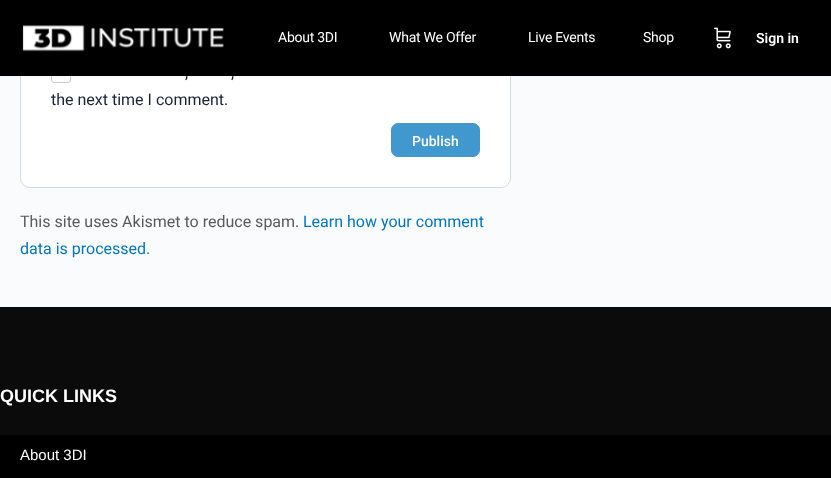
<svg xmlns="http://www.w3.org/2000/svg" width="831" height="478">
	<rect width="100%" height="100%" fill="#FAFBFD" />
	<rect x="20.5" y="-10.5" width="490" height="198" rx="9.5" fill="#FFFFFF" stroke="#D6D9DD" />
	<rect x="51.5" y="63.5" width="19" height="19" rx="2.5" fill="none" stroke="#C9CBCA" />
	<rect x="0" y="76" width="831" height="1" fill="#8B8D9D" fill-opacity="0.05" />
	<rect x="0" y="0" width="831" height="76" fill="#000000" />
	<image x="22" y="25" width="202" height="27" href="assets/img1.png" />
	<g font-family="Roboto" font-size="14" letter-spacing="-0.25" fill="#FFFFFF">
		<text x="278" y="42">About 3DI</text>
		<text x="389" y="42">What We Offer</text>
		<text x="528" y="42">Live Events</text>
		<text x="643" y="42">Shop</text>
	</g>
	<image x="714" y="27" width="17" height="22" href="assets/img2.png" />
	<text x="756" y="43" font-family="Roboto" font-size="14" font-weight="600" fill="#FFFFFF">Sign in</text>
	<g font-family="Roboto" font-size="16" fill="#1E2132">
		<text x="185" y="78">,</text>
		<text x="231" y="78">,</text>
		<text x="51" y="105">the next time I comment.</text>
	</g>
	<rect x="391.5" y="123.5" width="88" height="33" rx="6.5" fill="#4098CE" stroke="#4098CE" />
	<text x="412" y="146" font-family="Roboto" font-size="14" font-weight="500" fill="#FFFFFF">Publish</text>
	<text x="20" y="227" font-family="Roboto" font-size="16" fill="#5A5A5A">This site uses Akismet to reduce spam.</text>
	<g font-family="Roboto" font-size="16" fill="#0076BD">
		<text x="303" y="227">Learn how your comment</text>
		<text x="20" y="254">data is processed.</text>
	</g>
	<rect x="0" y="307" width="831" height="128" fill="#0B0B0B" />
	<text x="0" y="402" font-family="Liberation Sans" font-size="18" font-weight="700" fill="#FFFFFF">QUICK LINKS</text>
	<rect x="0" y="435" width="831" height="43" fill="#000000" />
	<text x="20" y="460" font-family="Liberation Sans" font-size="15" fill="#FFFFFF">About 3DI</text>
</svg>
